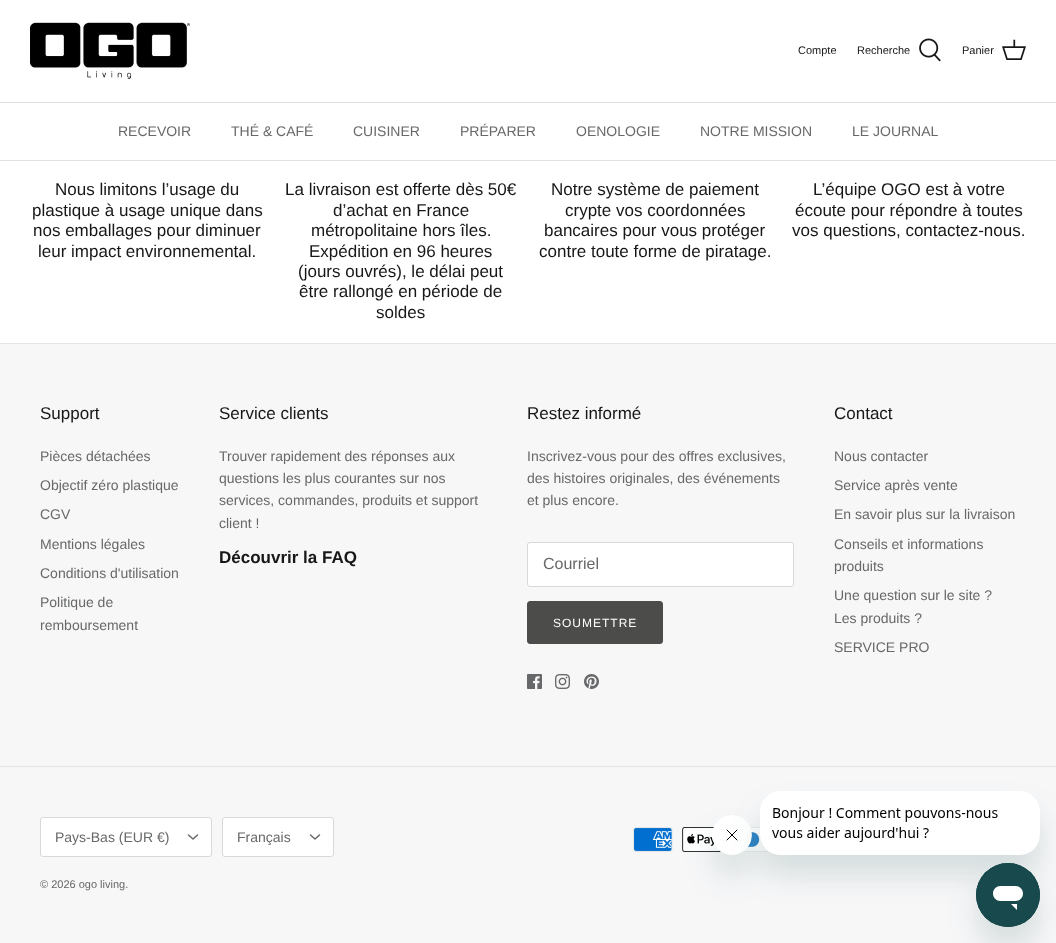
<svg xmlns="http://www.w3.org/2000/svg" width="1056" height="943">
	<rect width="100%" height="100%" fill="#F7F7F8" />
	<rect x="0" y="0" width="1056" height="102" fill="#FFFFFF" />
	<rect x="0" y="102" width="1056" height="1" fill="#E2E2E2" />
	<image x="30" y="22" width="160" height="57" href="assets/img1.png" />
	<g font-family="Arimo" font-size="11" fill="#171717">
		<text x="798" y="54">Compte</text>
		<text x="857" y="54">Recherche</text>
	</g>
	<image x="919" y="38" width="22" height="24" href="assets/img2.png" />
	<text x="962" y="54" font-family="Arimo" font-size="11" fill="#171717">Panier</text>
	<image x="1002" y="39" width="24" height="21" href="assets/img3.png" />
	<rect x="0" y="160" width="1056" height="1" fill="#E2E2E2" />
	<rect x="0" y="103" width="1056" height="57" fill="#FFFFFF" />
	<g font-family="Arimo" font-size="14" fill="#676869">
		<text x="118" y="136">RECEVOIR</text>
		<text x="231" y="136">THÉ &amp; CAFÉ</text>
		<text x="353" y="136">CUISINER</text>
		<text x="460" y="136">PRÉPARER</text>
		<text x="576" y="136">OENOLOGIE</text>
		<text x="700" y="136">NOTRE MISSION</text>
		<text x="852" y="136">LE JOURNAL</text>
	</g>
	<rect x="0" y="161" width="1056" height="182" fill="#FFFFFF" />
	<g font-family="Arimo" font-size="17" fill="#171717">
		<text x="55" y="195">Nous limitons l’usage du</text>
		<text x="32" y="216">plastique à usage unique dans</text>
		<text x="33" y="236">nos emballages pour diminuer</text>
		<text x="38" y="257">leur impact environnemental.</text>
		<text x="285" y="195">La livraison est offerte dès 50€</text>
		<text x="333" y="216">d’achat en France</text>
		<text x="311" y="236">métropolitaine hors îles.</text>
		<text x="309" y="257">Expédition en 96 heures</text>
		<text x="298" y="277">(jours ouvrés), le délai peut</text>
		<text x="299" y="297">être rallongé en période de</text>
		<text x="376" y="318">soldes</text>
		<text x="551" y="195">Notre système de paiement</text>
		<text x="565" y="216">crypte vos coordonnées</text>
		<text x="544" y="236">bancaires pour vous protéger</text>
		<text x="539" y="257">contre toute forme de piratage.</text>
		<text x="813" y="195">L’équipe OGO est à votre</text>
		<text x="795" y="216">écoute pour répondre à toutes</text>
		<text x="792" y="236">vos questions, contactez-nous.</text>
	</g>
	<rect x="0" y="343" width="1056" height="1" fill="#E4E4E4" />
	<text x="40" y="419" font-family="Arimo" font-size="17" fill="#171717">Support</text>
	<g font-family="Arimo" font-size="14" fill="#676869">
		<text x="40" y="461">Pièces détachées</text>
		<text x="40" y="490">Objectif zéro plastique</text>
		<text x="40" y="519">CGV</text>
		<text x="40" y="549">Mentions légales</text>
		<text x="40" y="578">Conditions d'utilisation</text>
		<text x="40" y="607">Politique de</text>
		<text x="40" y="630">remboursement</text>
	</g>
	<text x="219" y="419" font-family="Arimo" font-size="17" fill="#171717">Service clients</text>
	<g font-family="Arimo" font-size="14" fill="#676869">
		<text x="219" y="461">Trouver rapidement des réponses aux</text>
		<text x="219" y="483">questions les plus courantes sur nos</text>
		<text x="219" y="505">services, commandes, produits et support</text>
		<text x="219" y="528">client !</text>
	</g>
	<text x="219" y="563" font-family="Arimo" font-size="17" font-weight="700" fill="#171717">Découvrir la FAQ</text>
	<text x="527" y="419" font-family="Arimo" font-size="17" fill="#171717">Restez informé</text>
	<g font-family="Arimo" font-size="14" fill="#676869">
		<text x="527" y="461">Inscrivez-vous pour des offres exclusives,</text>
		<text x="527" y="483">des histoires originales, des événements</text>
		<text x="527" y="505">et plus encore.</text>
	</g>
	<rect x="527.5" y="542.5" width="266" height="44" rx="2.5" fill="#FFFFFF" stroke="#D9D9DA" />
	<text x="543" y="569" font-family="Arimo" font-size="16" fill="#676869">Courriel</text>
	<rect x="527.5" y="601.5" width="135" height="42" rx="2.5" fill="#4C4C4B" stroke="#4C4C4B" />
	<text x="553" y="627" font-family="Arimo" font-size="12" letter-spacing="1" fill="#FFFFFF">SOUMETTRE</text>
	<image x="527" y="674" width="15" height="15" href="assets/img4.png" />
	<image x="555" y="674" width="15" height="15" href="assets/img5.png" />
	<image x="584" y="674" width="15" height="15" href="assets/img6.png" />
	<text x="834" y="419" font-family="Arimo" font-size="17" fill="#171717">Contact</text>
	<g font-family="Arimo" font-size="14" fill="#676869">
		<text x="834" y="461">Nous contacter</text>
		<text x="834" y="490">Service après vente</text>
		<text x="834" y="519">En savoir plus sur la livraison</text>
		<text x="834" y="549">Conseils et informations</text>
		<text x="834" y="571">produits</text>
		<text x="834" y="600">Une question sur le site ?</text>
		<text x="834" y="623">Les produits ?</text>
		<text x="834" y="652">SERVICE PRO</text>
	</g>
	<rect x="0" y="766" width="1056" height="1" fill="#E4E4E4" />
	<rect x="40.5" y="817.5" width="171" height="39" rx="2.5" fill="#FFFFFF" stroke="#D9D9DA" />
	<text x="55" y="842" font-family="Arimo" font-size="14" fill="#676869">Pays-Bas (EUR €)</text>
	<path d="M188.5 835L193 839L197.5 835" fill="none" stroke="#676869" stroke-width="1.5" stroke-linecap="round" stroke-linejoin="round" />
	<rect x="222.5" y="817.5" width="111" height="39" rx="2.5" fill="#FFFFFF" stroke="#D9D9DA" />
	<text x="237" y="842" font-family="Arimo" font-size="14" fill="#676869">Français</text>
	<path d="M310.5 835L315 839L319.5 835" fill="none" stroke="#676869" stroke-width="1.5" stroke-linecap="round" stroke-linejoin="round" />
	<text x="40" y="888" font-family="Arimo" font-size="11" fill="#676869">© 2026 ogo living.</text>
	<image x="633" y="827" width="40" height="25" href="assets/img7.png" />
	<image x="682" y="827" width="39" height="25" href="assets/img8.png" />
	<image x="742" y="827" width="26" height="25" href="assets/img9.png" />
	<rect x="712" y="835" width="40" height="40" rx="20" fill="#17494D" fill-opacity="0.15" filter="blur(15px)" />
	<image x="712" y="815" width="40" height="40" href="assets/img11.png" />
	<rect x="760" y="811" width="280" height="64" rx="20" fill="#17494D" fill-opacity="0.15" filter="blur(15px)" />
	<image x="760" y="791" width="280" height="64" href="assets/img10.png" />
	<rect x="976" y="883" width="64" height="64" rx="32" fill="#17494D" fill-opacity="0.15" filter="blur(15px)" />
	<image x="976" y="863" width="64" height="64" href="assets/img12.png" />
</svg>
